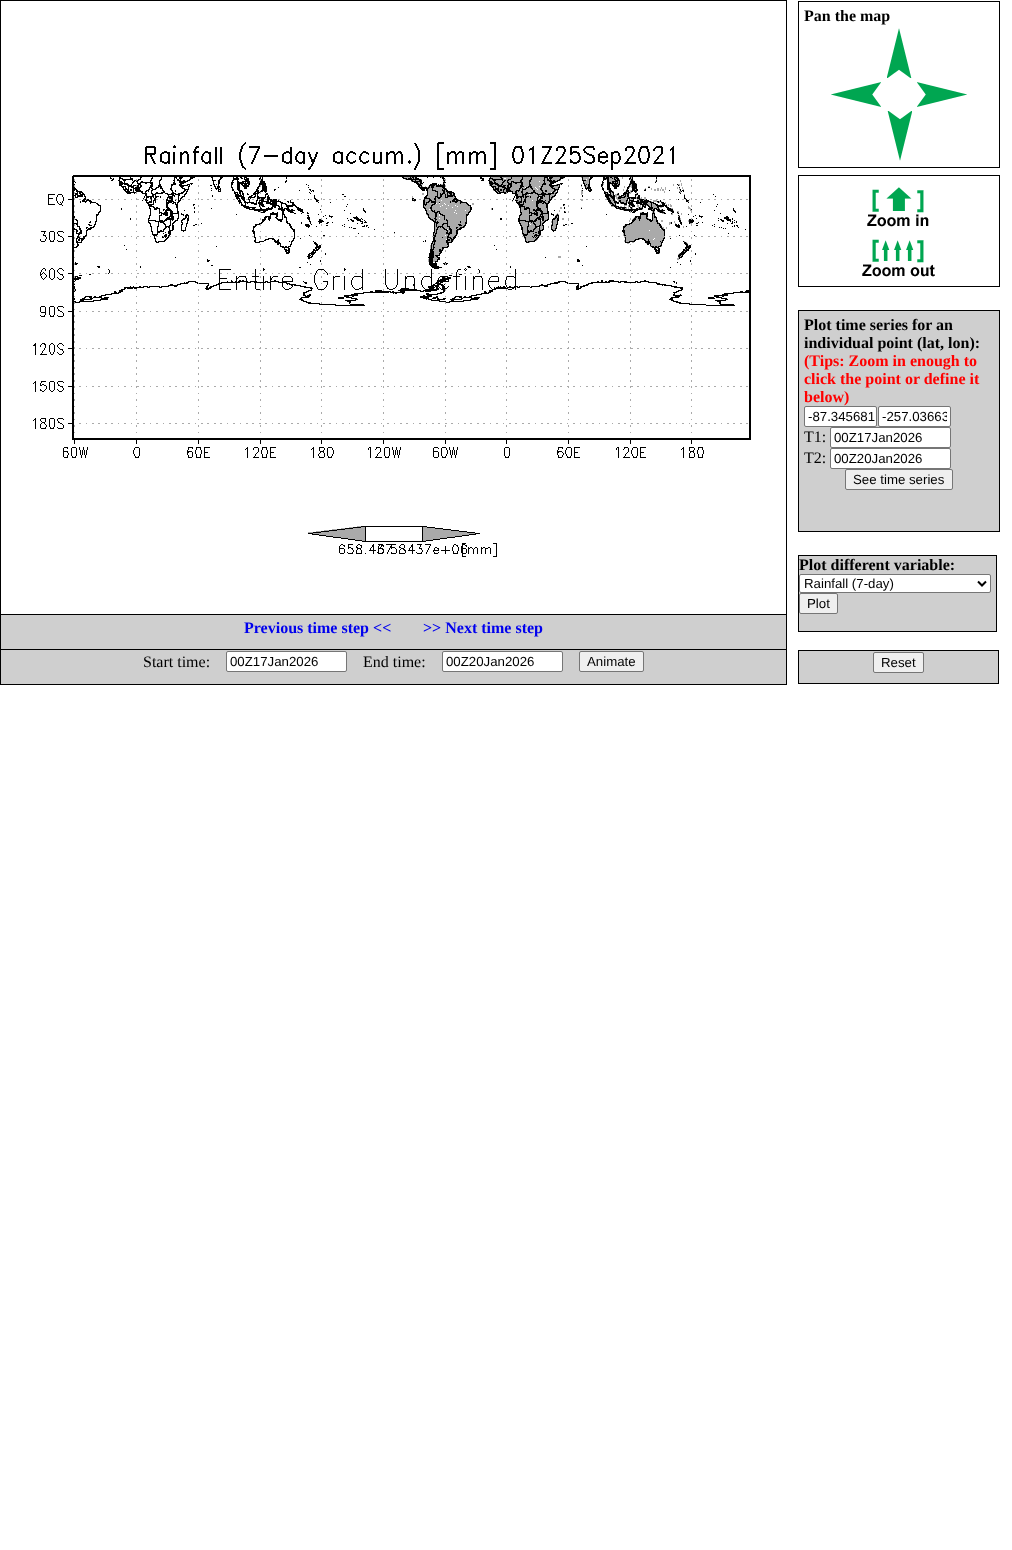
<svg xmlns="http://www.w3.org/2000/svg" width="1012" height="1550">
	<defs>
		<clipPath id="clip1"><rect x="882" y="409" width="65" height="15" /></clipPath>
	</defs>
	<rect width="100%" height="100%" fill="#FFFFFF" />
	<rect x="0.5" y="0.5" width="786" height="684" fill="none" stroke="#000000" />
	<image x="33" y="142" width="718" height="415" href="assets/img1.png" />
	<rect x="798.5" y="1.5" width="201" height="166" fill="none" stroke="#000000" />
	<text x="804" y="21" font-family="Liberation Serif" font-size="16" font-weight="700" fill="#000000">Pan the map</text>
	<image x="887" y="28" width="25" height="50" href="assets/img2.png" />
	<image x="831" y="82" width="50" height="25" href="assets/img3.png" />
	<image x="917" y="82" width="50" height="25" href="assets/img4.png" />
	<image x="887" y="111" width="25" height="50" href="assets/img5.png" />
	<rect x="798.5" y="175.5" width="201" height="111" fill="none" stroke="#000000" />
	<image x="867" y="187" width="62" height="40" href="assets/img6.png" />
	<image x="862" y="239" width="73" height="38" href="assets/img7.png" />
	<rect x="798.5" y="310.5" width="201" height="221" fill="#CFCFCF" stroke="#000000" />
	<g font-family="Liberation Serif" font-size="16" font-weight="700" fill="#000000">
		<text x="804" y="330">Plot time series for an</text>
		<text x="804" y="348">individual point (lat, lon):</text>
	</g>
	<g font-family="Liberation Serif" font-size="16" font-weight="700" fill="#FF0000">
		<text x="804" y="366">(Tips: Zoom in enough to</text>
		<text x="804" y="384">click the point or define it</text>
		<text x="804" y="402">below)</text>
	</g>
	<rect x="804.5" y="406.5" width="72" height="20" rx="1.5" fill="#FFFFFF" stroke="#767676" />
	<text x="808" y="421" font-family="Liberation Sans" font-size="13.25" fill="#000000">-87.345681</text>
	<rect x="878.5" y="406.5" width="72" height="20" rx="1.5" fill="#FFFFFF" stroke="#767676" />
	<g clip-path="url(#clip1)">
		<text x="882" y="421" font-family="Liberation Sans" font-size="13.25" fill="#000000">-257.03663</text>
	</g>
	<text x="804" y="442" font-family="Liberation Serif" font-size="16" fill="#000000">T1:</text>
	<rect x="830.5" y="427.5" width="120" height="20" rx="1.5" fill="#FFFFFF" stroke="#767676" />
	<text x="834" y="442" font-family="Liberation Sans" font-size="13.25" fill="#000000">00Z17Jan2026</text>
	<text x="804" y="463" font-family="Liberation Serif" font-size="16" fill="#000000">T2:</text>
	<rect x="830.5" y="448.5" width="120" height="20" rx="1.5" fill="#FFFFFF" stroke="#767676" />
	<text x="834" y="463" font-family="Liberation Sans" font-size="13.25" fill="#000000">00Z20Jan2026</text>
	<rect x="845.5" y="469.5" width="107" height="20" rx="1.5" fill="#EFEFEF" stroke="#767676" />
	<text x="853" y="484" font-family="Liberation Sans" font-size="13.25" fill="#000000">See time series</text>
	<rect x="798.5" y="555.5" width="198" height="76" fill="#CFCFCF" stroke="#000000" />
	<text x="799" y="570" font-family="Liberation Serif" font-size="16" font-weight="700" fill="#000000">Plot different variable:</text>
	<rect x="799.5" y="574.5" width="191" height="18" rx="1.5" fill="#FFFFFF" stroke="#767676" />
	<path d="M978 581.5L982 585.5L986 581.5" fill="none" stroke="#000000" stroke-width="2" />
	<text x="804" y="588" font-family="Liberation Sans" font-size="13.25" fill="#000000">Rainfall (7-day)</text>
	<rect x="799.5" y="593.5" width="38" height="20" rx="1.5" fill="#EFEFEF" stroke="#767676" />
	<text x="807" y="608" font-family="Liberation Sans" font-size="13.25" fill="#000000">Plot</text>
	<rect x="0.5" y="614.5" width="786" height="35" fill="#CFCFCF" stroke="#000000" />
	<g font-family="Liberation Serif" font-size="16" font-weight="700" fill="#0000EE">
		<text x="244" y="633">Previous time step &lt;&lt;</text>
		<text x="423" y="633">&gt;&gt; Next time step</text>
	</g>
	<rect x="1" y="650" width="785" height="34" fill="#CFCFCF" />
	<text x="143" y="667" font-family="Liberation Serif" font-size="16" fill="#000000">Start time:</text>
	<rect x="226.5" y="651.5" width="120" height="20" rx="1.5" fill="#FFFFFF" stroke="#767676" />
	<text x="230" y="666" font-family="Liberation Sans" font-size="13.25" fill="#000000">00Z17Jan2026</text>
	<text x="363" y="667" font-family="Liberation Serif" font-size="16" fill="#000000">End time:</text>
	<rect x="442.5" y="651.5" width="120" height="20" rx="1.5" fill="#FFFFFF" stroke="#767676" />
	<text x="446" y="666" font-family="Liberation Sans" font-size="13.25" fill="#000000">00Z20Jan2026</text>
	<rect x="579.5" y="651.5" width="64" height="20" rx="1.5" fill="#EFEFEF" stroke="#767676" />
	<text x="587" y="666" font-family="Liberation Sans" font-size="13.25" fill="#000000">Animate</text>
	<rect x="798.5" y="650.5" width="200" height="33" fill="#CFCFCF" stroke="#000000" />
	<rect x="873.5" y="652.5" width="50" height="20" rx="1.5" fill="#EFEFEF" stroke="#767676" />
	<text x="881" y="667" font-family="Liberation Sans" font-size="13.25" fill="#000000">Reset</text>
</svg>
